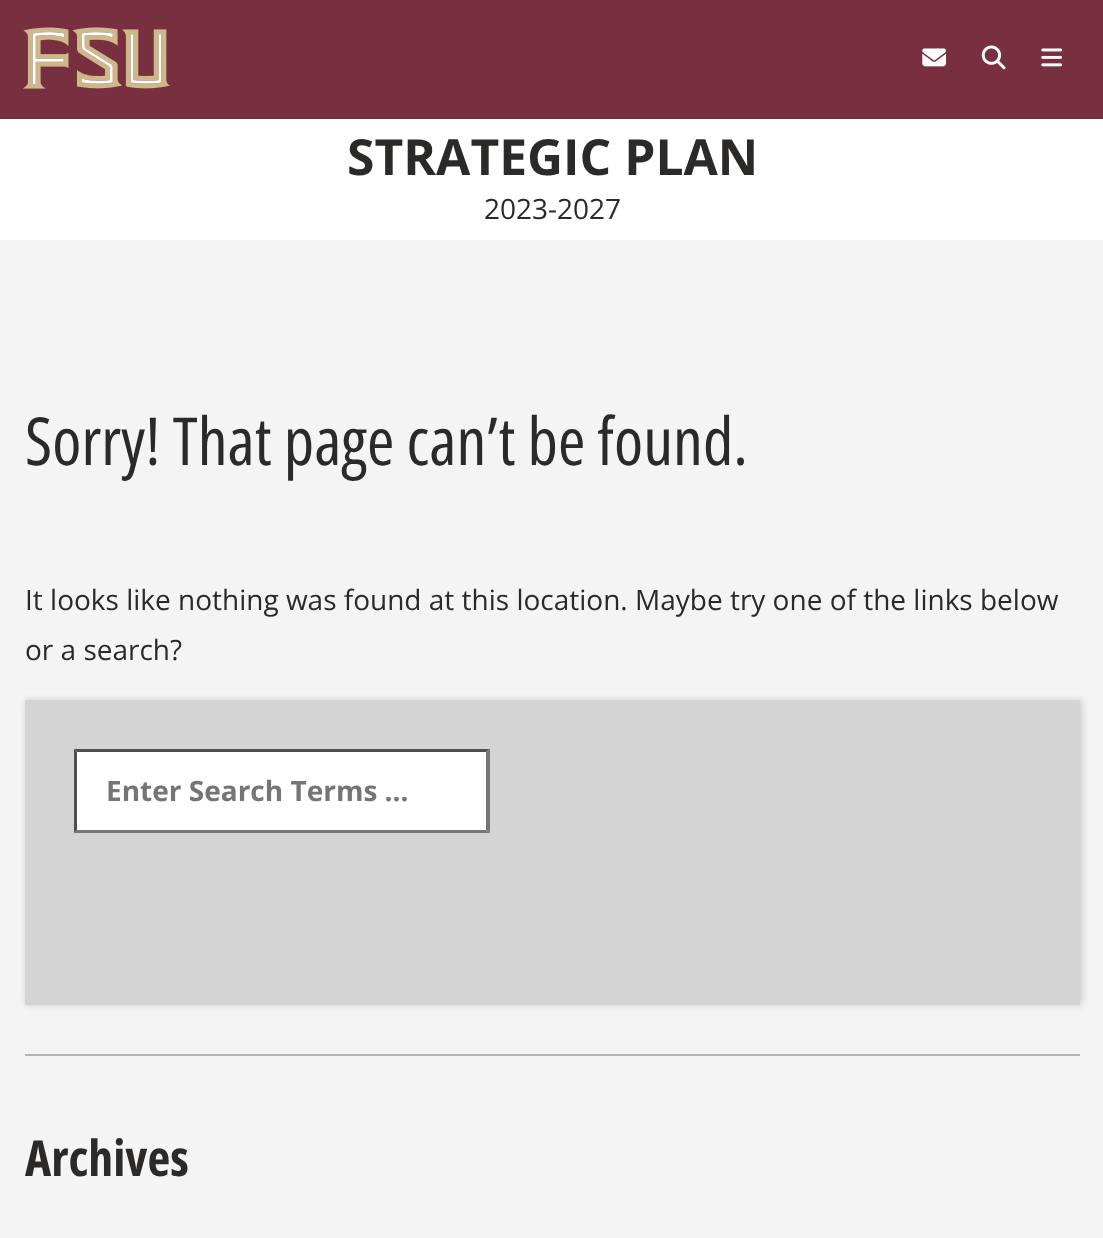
<svg xmlns="http://www.w3.org/2000/svg" width="1103" height="1238">
	<rect width="100%" height="100%" fill="#782F40" />
	<image x="22" y="27" width="148" height="62" href="assets/img1.png" />
	<image x="922" y="48" width="25" height="19" href="assets/img2.png" />
	<image x="981" y="45" width="25" height="25" href="assets/img3.png" />
	<image x="1041" y="48" width="21" height="19" href="assets/img4.png" />
	<rect x="0" y="119" width="1103" height="121" fill="#FFFFFF" />
	<text x="347" y="175" font-family="Open Sans" font-size="49.75" font-weight="700" fill="#2C2A29">STRATEGIC PLAN</text>
	<text x="484" y="219" font-family="Open Sans" font-size="28" fill="#2C2A29">2023-2027</text>
	<rect x="0" y="240" width="1103" height="998" fill="#F4F4F4" />
	<text x="25" y="465" font-family="'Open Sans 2'" font-size="66.25" fill="#2C2A29">Sorry! That page can’t be found.</text>
	<g font-family="Open Sans" font-size="28" fill="#2C2A29">
		<text x="25" y="610">It looks like nothing was found at this location. Maybe try one of the links below</text>
		<text x="25" y="660">or a search?</text>
	</g>
	<rect x="26" y="700" width="1056" height="305" fill="#2C2A29" fill-opacity="0.2" filter="blur(3.5px)" />
	<rect x="25" y="700" width="1055" height="305" fill="#D5D4D4" />
	<rect x="74" y="749" width="416" height="84" fill="#FFFFFF" />
	<path d="M74 749H490L486 752H77Z" fill="#4F4F4F" />
	<path d="M490 749V833L486 830V752Z" fill="#767676" />
	<path d="M490 833H74L77 830H486Z" fill="#767676" />
	<path d="M74 833V749L77 752V830Z" fill="#4F4F4F" />
	<text x="106" y="801" font-family="Open Sans" font-size="28" font-weight="700" fill="#757575">Enter Search Terms …</text>
	<rect x="25" y="1054" width="1055" height="2" fill="#B5B5B4" />
	<text x="25" y="1176" font-family="'Open Sans 2'" font-size="49.75" font-weight="700" fill="#2C2A29">Archives</text>
</svg>
